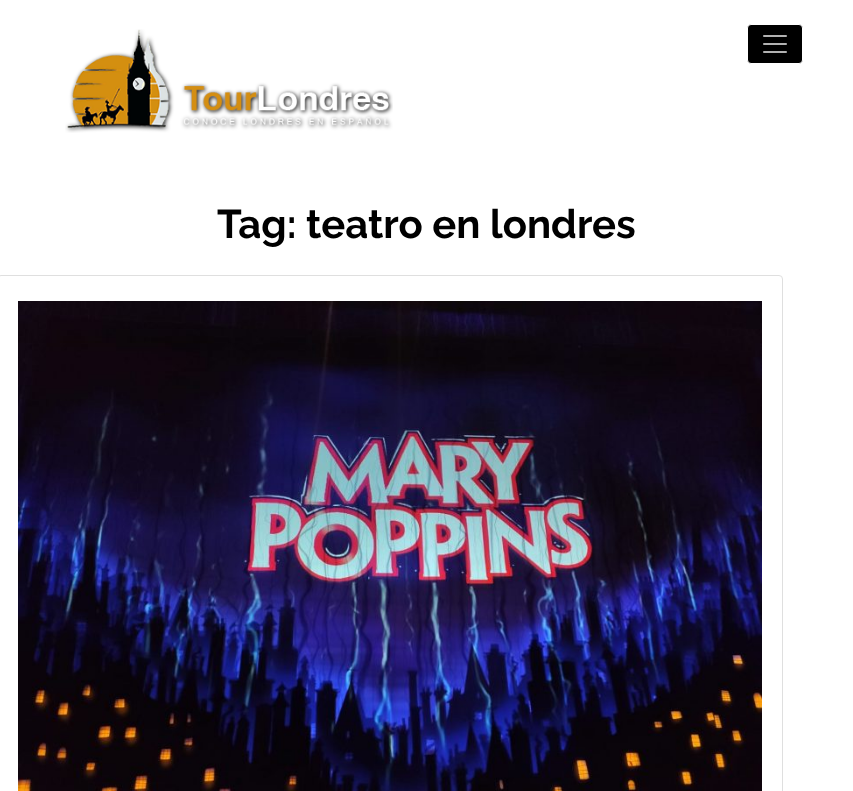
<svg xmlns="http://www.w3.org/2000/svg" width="853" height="791">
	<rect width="100%" height="100%" fill="#FFFFFF" />
	<image x="65" y="29" width="328" height="104" href="assets/img1.png" />
	<rect x="747.5" y="24.5" width="55" height="39" rx="3.5" fill="#000000" stroke="#FFFFFF" />
	<image x="763" y="35" width="24" height="18" href="assets/img2.png" />
	<text x="217" y="238" font-family="Raleway" font-size="40" font-weight="700" fill="#000000">Tag: teatro en londres</text>
	<rect x="-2.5" y="275.5" width="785" height="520" rx="3.5" fill="none" stroke="#DFDFDF" />
	<image x="18" y="301" width="744" height="490" href="assets/img3.png" />
</svg>
